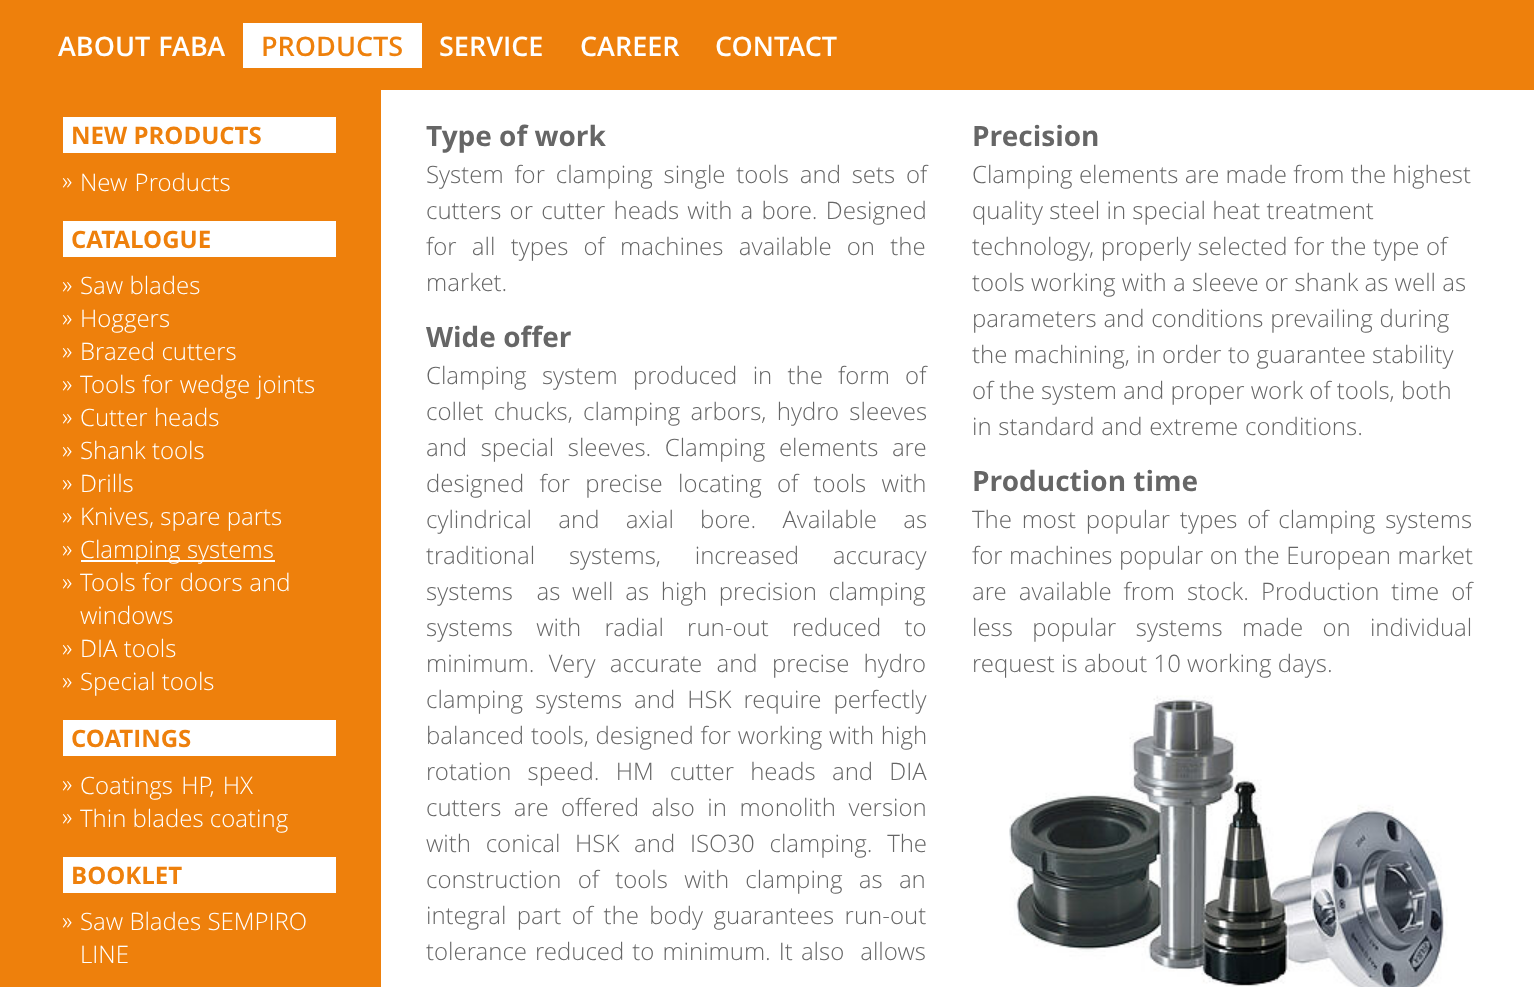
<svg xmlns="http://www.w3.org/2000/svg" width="1534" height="987">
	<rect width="100%" height="100%" fill="#FFFFFF" />
	<rect x="0" y="0" width="1534" height="90" fill="#EE800C" />
	<text x="58" y="56" word-spacing="1" font-family="Open Sans" font-size="27" font-weight="600" fill="#FFFFFF">ABOUT FABA</text>
	<rect x="243" y="23" width="179" height="45" fill="#FFFFFF" />
	<text x="261" y="56" font-family="Open Sans" font-size="27" font-weight="600" fill="#EE800C">PRODUCTS</text>
	<g font-family="Open Sans" font-size="27" font-weight="600" fill="#FFFFFF">
		<text x="439" y="56">SERVICE</text>
		<text x="580" y="56">CAREER</text>
		<text x="715" y="56">CONTACT</text>
	</g>
	<rect x="0" y="90" width="381" height="897" fill="#EE800C" />
	<rect x="63" y="117" width="273" height="36" fill="#FFFFFF" />
	<text x="71" y="144" font-family="Open Sans" font-size="24" font-weight="700" fill="#EE800C">NEW PRODUCTS</text>
	<g font-family="Open Sans" font-size="24" font-weight="300" fill="#FFFFFF">
		<text x="62" y="189">»</text>
		<text x="80" y="191" word-spacing="1">New Products</text>
	</g>
	<rect x="63" y="221" width="273" height="36" fill="#FFFFFF" />
	<text x="71" y="248" font-family="Open Sans" font-size="24" font-weight="700" fill="#EE800C">CATALOGUE</text>
	<g font-family="Open Sans" font-size="24" font-weight="300" fill="#FFFFFF">
		<text x="62" y="293">»</text>
		<text x="80" y="294">Saw blades</text>
		<text x="62" y="326">»</text>
		<text x="80" y="327">Hoggers</text>
		<text x="62" y="359">»</text>
		<text x="80" y="360">Brazed cutters</text>
		<text x="62" y="392">»</text>
		<text x="80" y="393" word-spacing="0.5">Tools for wedge joints</text>
		<text x="62" y="425">»</text>
		<text x="80" y="426">Cutter heads</text>
		<text x="62" y="458">»</text>
		<text x="80" y="459">Shank tools</text>
		<text x="62" y="491">»</text>
		<text x="80" y="492">Drills</text>
		<text x="62" y="524">»</text>
		<text x="80" y="525">Knives, spare parts</text>
		<text x="62" y="557">»</text>
	</g>
	<rect x="81" y="560" width="194" height="2" fill="#FFFFFF" />
	<g font-family="Open Sans" font-size="24" font-weight="300" fill="#FFFFFF">
		<text x="80" y="558">Clamping systems</text>
		<text x="62" y="590">»</text>
		<text x="80" y="591" word-spacing="0.5">Tools for doors and</text>
		<text x="80" y="624">windows</text>
		<text x="62" y="656">»</text>
		<text x="80" y="657">DIA tools</text>
		<text x="62" y="689">»</text>
		<text x="80" y="690">Special tools</text>
	</g>
	<rect x="63" y="720" width="273" height="36" fill="#FFFFFF" />
	<text x="71" y="747" font-family="Open Sans" font-size="24" font-weight="700" fill="#EE800C">COATINGS</text>
	<g font-family="Open Sans" font-size="24" font-weight="300" fill="#FFFFFF">
		<text x="62" y="792">»</text>
		<text x="80" y="794" word-spacing="2">Coatings HP, HX</text>
		<text x="62" y="825">»</text>
		<text x="80" y="827">Thin blades coating</text>
	</g>
	<rect x="63" y="857" width="273" height="36" fill="#FFFFFF" />
	<text x="71" y="884" font-family="Open Sans" font-size="24" font-weight="700" fill="#EE800C">BOOKLET</text>
	<g font-family="Open Sans" font-size="24" font-weight="300" fill="#FFFFFF">
		<text x="62" y="929">»</text>
		<text x="80" y="930">Saw Blades SEMPIRO</text>
		<text x="80" y="963">LINE</text>
	</g>
	<text x="426" y="146" font-family="Open Sans" font-size="28" font-weight="700" fill="#666666">Type of work</text>
	<g font-family="Open Sans" font-size="24" font-weight="300" fill="#666666">
		<text x="426" y="183" word-spacing="4.5">System for clamping single tools and sets of</text>
		<text x="426" y="219" word-spacing="2">cutters or cutter heads with a bore. Designed</text>
		<text x="426" y="255" word-spacing="9">for all types of machines available on the</text>
		<text x="426" y="291">market.</text>
	</g>
	<text x="426" y="347" font-family="Open Sans" font-size="28" font-weight="700" fill="#666666">Wide offer</text>
	<g font-family="Open Sans" font-size="24" font-weight="300" fill="#666666">
		<text x="426" y="384" word-spacing="9">Clamping system produced in the form of</text>
		<text x="426" y="420" word-spacing="4">collet chucks, clamping arbors, hydro sleeves</text>
		<text x="426" y="456" word-spacing="7.25">and special sleeves. Clamping elements are</text>
		<text x="426" y="492" word-spacing="9">designed for precise locating of tools with</text>
		<text x="426" y="528" word-spacing="20">cylindrical and axial bore. Available as</text>
		<text x="426" y="564" word-spacing="27.5">traditional systems, increased accuracy</text>
		<text x="426" y="600" word-spacing="5.5" xml:space="preserve">systems  as well as high precision clamping</text>
		<text x="426" y="636" word-spacing="17">systems with radial run-out reduced to</text>
		<text x="426" y="672" word-spacing="8">minimum. Very accurate and precise hydro</text>
		<text x="426" y="708" word-spacing="5.75">clamping systems and HSK require perfectly</text>
		<text x="426" y="744" word-spacing="0.5">balanced tools, designed for working with high</text>
		<text x="426" y="780" word-spacing="10">rotation speed. HM cutter heads and DIA</text>
		<text x="426" y="816" word-spacing="6.25">cutters are offered also in monolith version</text>
		<text x="426" y="852" word-spacing="8.5">with conical HSK and ISO30 clamping. The</text>
		<text x="426" y="888" word-spacing="10">construction of tools with clamping as an</text>
		<text x="426" y="924" word-spacing="4.25">integral part of the body guarantees run-out</text>
		<text x="426" y="960" word-spacing="1.75" xml:space="preserve">tolerance reduced to minimum. It also  allows</text>
	</g>
	<text x="972" y="146" font-family="Open Sans" font-size="28" font-weight="700" fill="#666666">Precision</text>
	<g font-family="Open Sans" font-size="24" font-weight="300" fill="#666666">
		<text x="972" y="183">Clamping elements are made from the highest</text>
		<text x="972" y="219">quality steel in special heat treatment</text>
		<text x="972" y="255" word-spacing="0.25">technology, properly selected for the type of</text>
		<text x="972" y="291">tools working with a sleeve or shank as well as</text>
		<text x="972" y="327" word-spacing="0.5">parameters and conditions prevailing during</text>
		<text x="972" y="363">the machining, in order to guarantee stability</text>
		<text x="972" y="399">of the system and proper work of tools, both</text>
		<text x="972" y="435" word-spacing="0.5">in standard and extreme conditions.</text>
	</g>
	<text x="972" y="491" font-family="Open Sans" font-size="28" font-weight="700" fill="#666666">Production time</text>
	<g font-family="Open Sans" font-size="24" font-weight="300" fill="#666666">
		<text x="972" y="528" word-spacing="3.5">The most popular types of clamping systems</text>
		<text x="972" y="564" word-spacing="0.25">for machines popular on the European market</text>
		<text x="972" y="600" word-spacing="5.75">are available from stock. Production time of</text>
		<text x="972" y="636" word-spacing="13">less popular systems made on individual</text>
		<text x="972" y="672">request is about 10 working days.</text>
	</g>
	<image x="1009" y="695" width="439" height="292" href="assets/img1.png" />
</svg>
